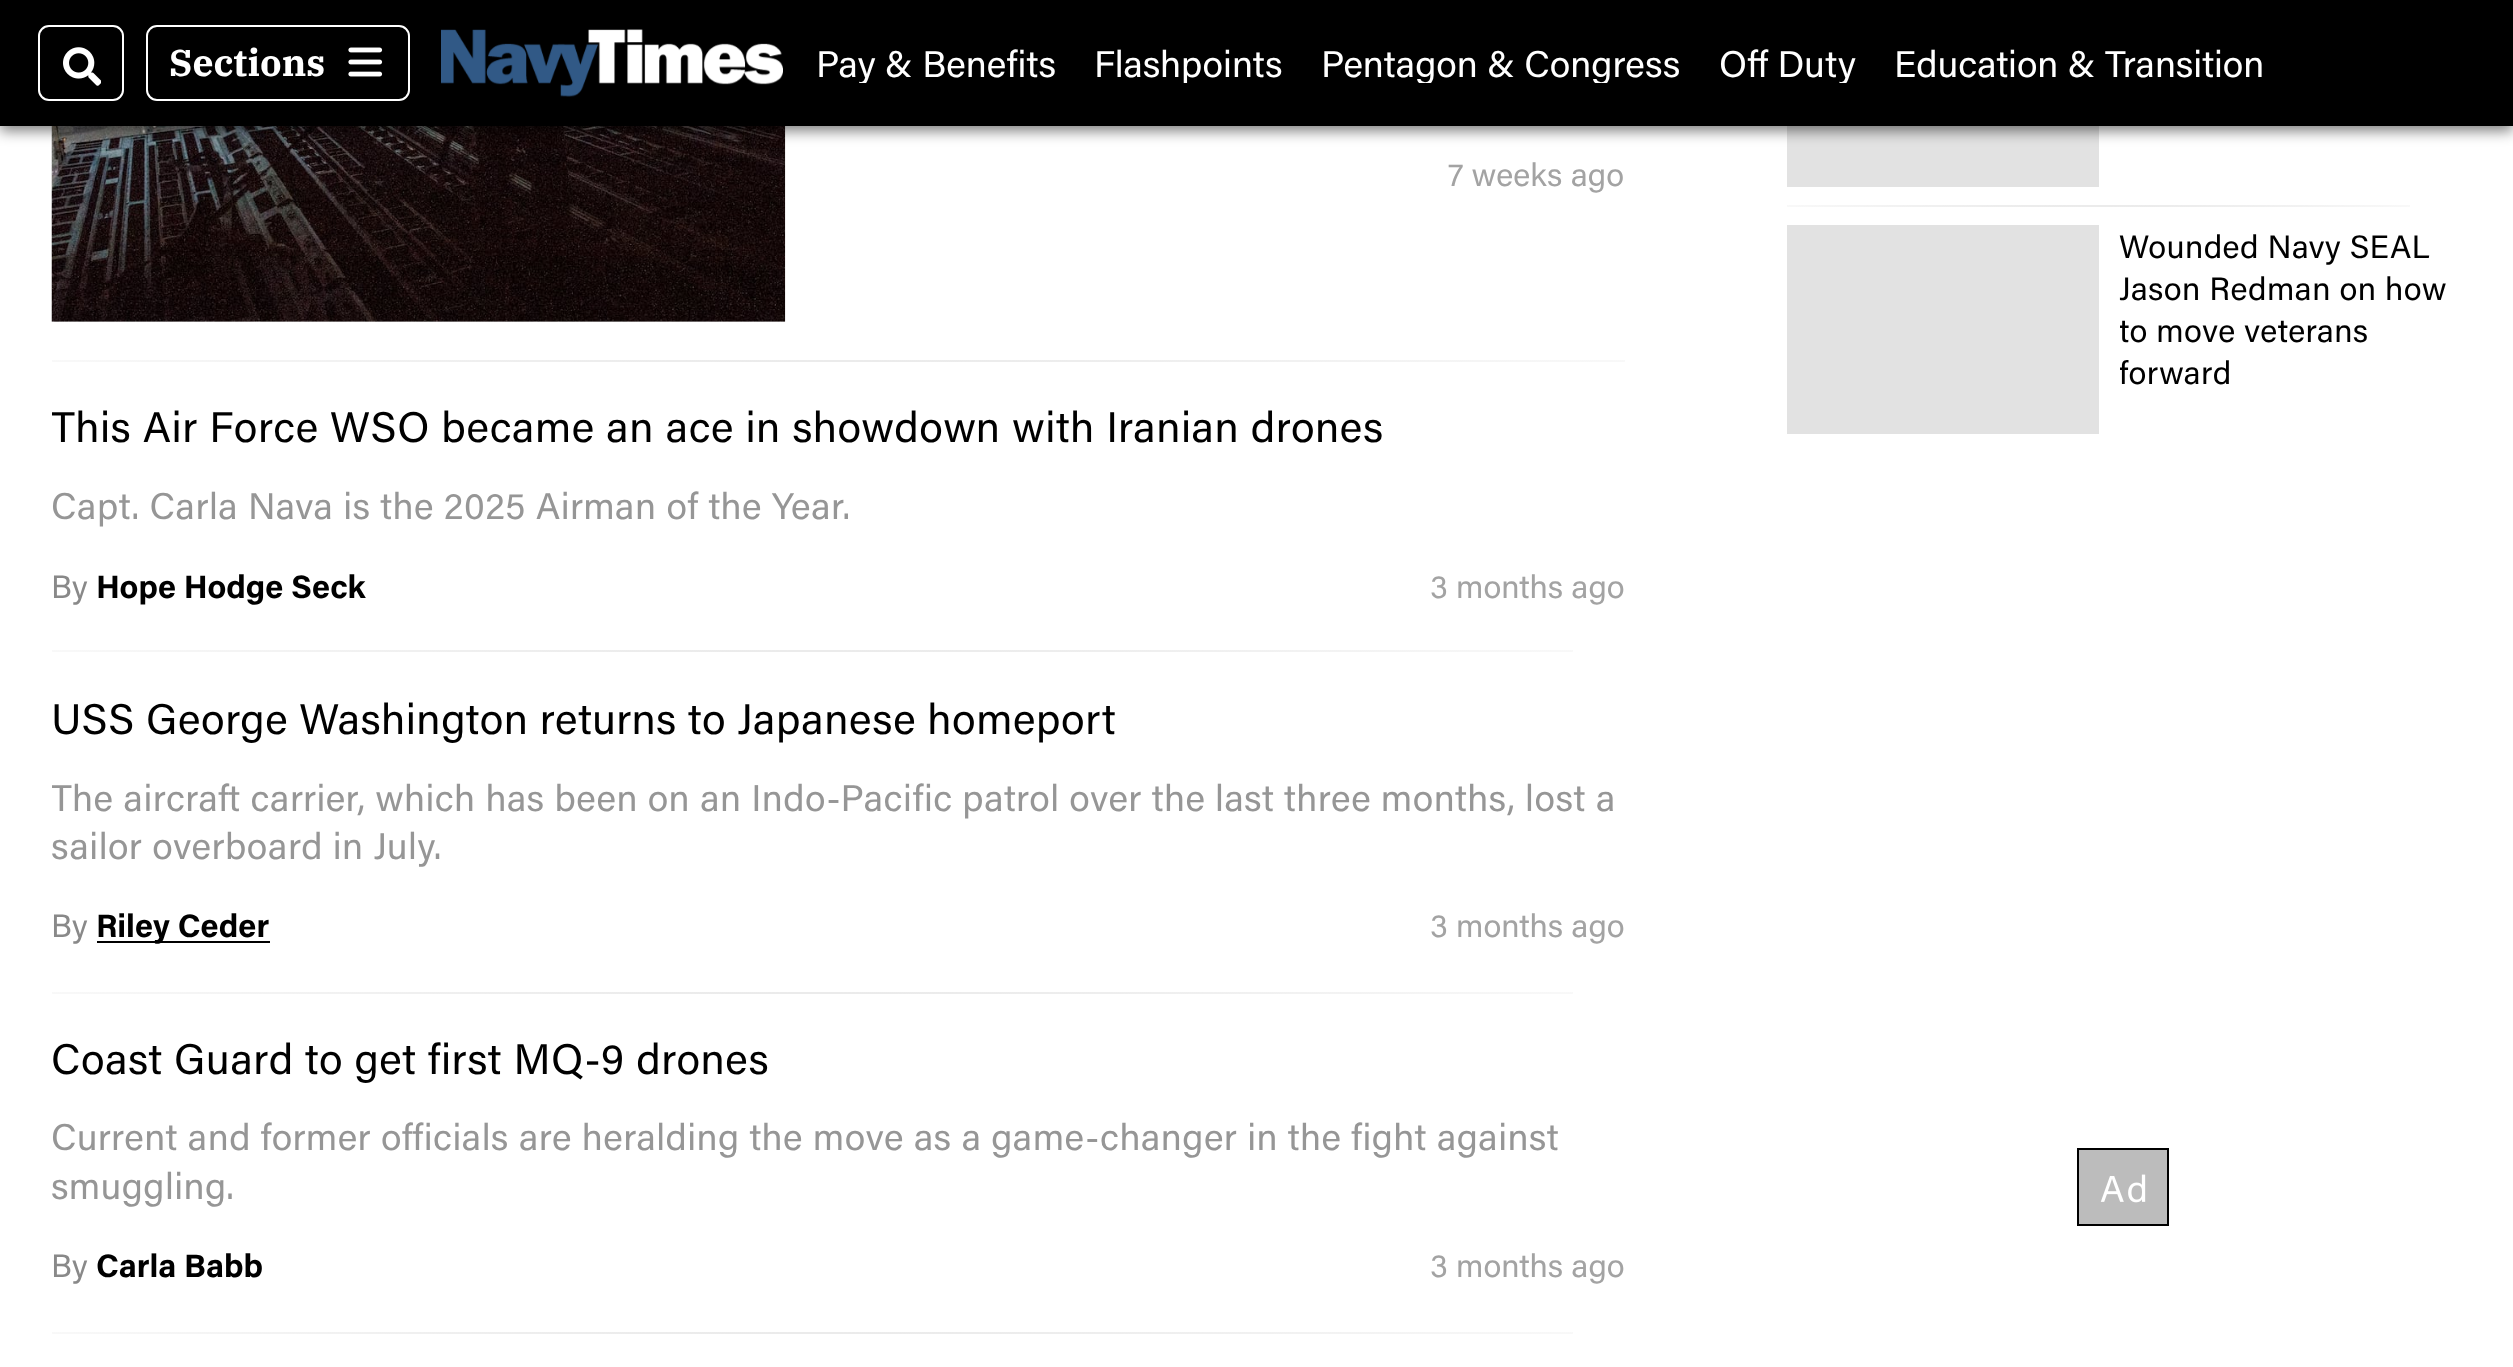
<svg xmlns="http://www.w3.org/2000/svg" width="2513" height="1367">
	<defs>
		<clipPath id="clip1"><rect x="817" y="43" width="1627" height="40" /></clipPath>
		<radialGradient id="g1" gradientUnits="userSpaceOnUse" cx="0" cy="0" r="1" gradientTransform="matrix(1112 0 0 1.6 838 361)"><stop offset="0" stop-color="#E2E2E2" /><stop offset="1" stop-color="#FFFFFF" /></radialGradient>
		<clipPath id="clip2"><rect x="52" y="401" width="1573" height="54" /></clipPath>
		<radialGradient id="g2" gradientUnits="userSpaceOnUse" cx="0" cy="0" r="1" gradientTransform="matrix(1076 0 0 1.6 812 651)"><stop offset="0" stop-color="#E2E2E2" /><stop offset="1" stop-color="#FFFFFF" /></radialGradient>
		<clipPath id="clip3"><rect x="52" y="691" width="1573" height="263" /></clipPath>
		<radialGradient id="g3" gradientUnits="userSpaceOnUse" cx="0" cy="0" r="1" gradientTransform="matrix(1076 0 0 1.6 812 993)"><stop offset="0" stop-color="#E2E2E2" /><stop offset="1" stop-color="#FFFFFF" /></radialGradient>
		<radialGradient id="g4" gradientUnits="userSpaceOnUse" cx="0" cy="0" r="1" gradientTransform="matrix(1076 0 0 1.6 812 1333)"><stop offset="0" stop-color="#E2E2E2" /><stop offset="1" stop-color="#FFFFFF" /></radialGradient>
		<radialGradient id="g5" gradientUnits="userSpaceOnUse" cx="0" cy="0" r="1" gradientTransform="matrix(441 0 0 1.6 2098 206)"><stop offset="0" stop-color="#E2E2E2" /><stop offset="1" stop-color="#FFFFFF" /></radialGradient>
		<clipPath id="clip4"><rect x="2120" y="225" width="342" height="169" /></clipPath>
	</defs>
	<rect width="100%" height="100%" fill="#FFFFFF" />
	<rect x="52" y="321" width="733" height="1" fill="#E2E2E2" />
	<image x="51" y="126" width="735" height="196" href="assets/img4.png" />
	<rect x="1787" y="126" width="312" height="61" fill="#E2E2E2" />
	<rect x="0" y="5" width="2513" height="126" fill="#000000" fill-opacity="0.5" filter="blur(7px)" />
	<rect x="0" y="0" width="2513" height="126" fill="#000000" />
	<rect x="39" y="26" width="84" height="74" rx="10" fill="none" stroke="#FFFFFF" stroke-width="2" />
	<image x="63" y="47" width="38" height="39" href="assets/img1.png" />
	<rect x="147" y="26" width="262" height="74" rx="10" fill="none" stroke="#FFFFFF" stroke-width="2" />
	<text x="169" y="76" font-family="IBM Plex Serif" font-size="37.2" font-weight="700" fill="#FFFFFF">Sections</text>
	<image x="348" y="47" width="35" height="30" href="assets/img2.png" />
	<image x="441" y="29" width="342" height="68" href="assets/img3.png" />
	<g clip-path="url(#clip1)">
		<g font-family="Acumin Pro" font-size="37.2" fill="#FFFFFF">
			<text x="816" y="77">Pay &amp; Benefits</text>
			<text x="1094" y="77">Flashpoints</text>
			<text x="1321" y="77">Pentagon &amp; Congress</text>
			<text x="1719" y="77">Off Duty</text>
		</g>
	</g>
	<text x="1894" y="77" font-family="Acumin Pro" font-size="37.2" fill="#FFFFFF">Education &amp; Transition</text>
	<text x="1448" y="186" font-family="Acumin Pro" font-size="32.4" fill="#A3A3A3">7 weeks ago</text>
	<rect x="52" y="360" width="1573" height="2" fill="url(#g1)" />
	<g clip-path="url(#clip2)">
		<text x="51" y="442" font-family="Acumin Pro" font-size="42.8" letter-spacing="0.55" fill="#000000">This Air Force WSO became an ace in showdown with Iranian drones</text>
	</g>
	<text x="51" y="519" font-family="Acumin Pro" font-size="37.2" letter-spacing="0.47" fill="#969696">Capt. Carla Nava is the 2025 Airman of the Year.</text>
	<text x="51" y="598" font-family="Acumin Pro" font-size="32.4" fill="#898989">By</text>
	<text x="96" y="598" font-family="Acumin Pro" font-size="32.4" font-weight="700" fill="#000000">Hope Hodge Seck</text>
	<text x="1430" y="598" font-family="Acumin Pro" font-size="32.4" fill="#A3A3A3">3 months ago</text>
	<rect x="52" y="650" width="1521" height="2" fill="url(#g2)" />
	<text x="51" y="734" word-spacing="-0.1" font-family="Acumin Pro" font-size="42.8" letter-spacing="0.55" fill="#000000">USS George Washington returns to Japanese homeport</text>
	<g clip-path="url(#clip3)">
		<text x="51" y="811" word-spacing="-0.1" font-family="Acumin Pro" font-size="37.2" letter-spacing="0.47" fill="#969696">The aircraft carrier, which has been on an Indo-Pacific patrol over the last three months, lost a</text>
	</g>
	<text x="51" y="859" font-family="Acumin Pro" font-size="37.2" letter-spacing="0.47" fill="#969696">sailor overboard in July.</text>
	<text x="51" y="937" font-family="Acumin Pro" font-size="32.4" fill="#898989">By</text>
	<rect x="97" y="941" width="173" height="2" fill="#000000" />
	<text x="96" y="937" font-family="Acumin Pro" font-size="32.4" font-weight="700" fill="#000000">Riley Ceder</text>
	<text x="1430" y="937" font-family="Acumin Pro" font-size="32.4" fill="#A3A3A3">3 months ago</text>
	<rect x="52" y="992" width="1521" height="2" fill="url(#g3)" />
	<text x="51" y="1074" font-family="Acumin Pro" font-size="42.8" letter-spacing="0.55" fill="#000000">Coast Guard to get first MQ-9 drones</text>
	<g font-family="Acumin Pro" font-size="37.2" letter-spacing="0.47" fill="#969696">
		<text x="51" y="1150" word-spacing="-0.1">Current and former officials are heralding the move as a game-changer in the fight against</text>
		<text x="51" y="1199">smuggling.</text>
	</g>
	<text x="51" y="1277" font-family="Acumin Pro" font-size="32.4" fill="#898989">By</text>
	<text x="96" y="1277" font-family="Acumin Pro" font-size="32.4" font-weight="700" fill="#000000">Carla Babb</text>
	<text x="1430" y="1277" font-family="Acumin Pro" font-size="32.4" fill="#A3A3A3">3 months ago</text>
	<rect x="52" y="1332" width="1521" height="2" fill="url(#g4)" />
	<rect x="1787" y="205" width="623" height="2" fill="url(#g5)" />
	<rect x="1787" y="225" width="312" height="209" fill="#E2E2E2" />
	<g font-family="Acumin Pro" font-size="32.4" letter-spacing="0.4" fill="#000000">
		<text x="2119" y="258">Wounded Navy SEAL</text>
		<text x="2119" y="300">Jason Redman on how</text>
	</g>
	<g clip-path="url(#clip4)">
		<g font-family="Acumin Pro" font-size="32.4" letter-spacing="0.4" fill="#000000">
			<text x="2119" y="342">to move veterans</text>
			<text x="2119" y="384">forward</text>
		</g>
	</g>
	<rect x="2079" y="1150" width="88" height="74" fill="#BCBCBC" />
	<image x="2100" y="1174" width="46" height="29" href="assets/img5.png" />
	<rect x="2078" y="1149" width="90" height="76" fill="none" stroke="#000000" stroke-width="2" />
</svg>
